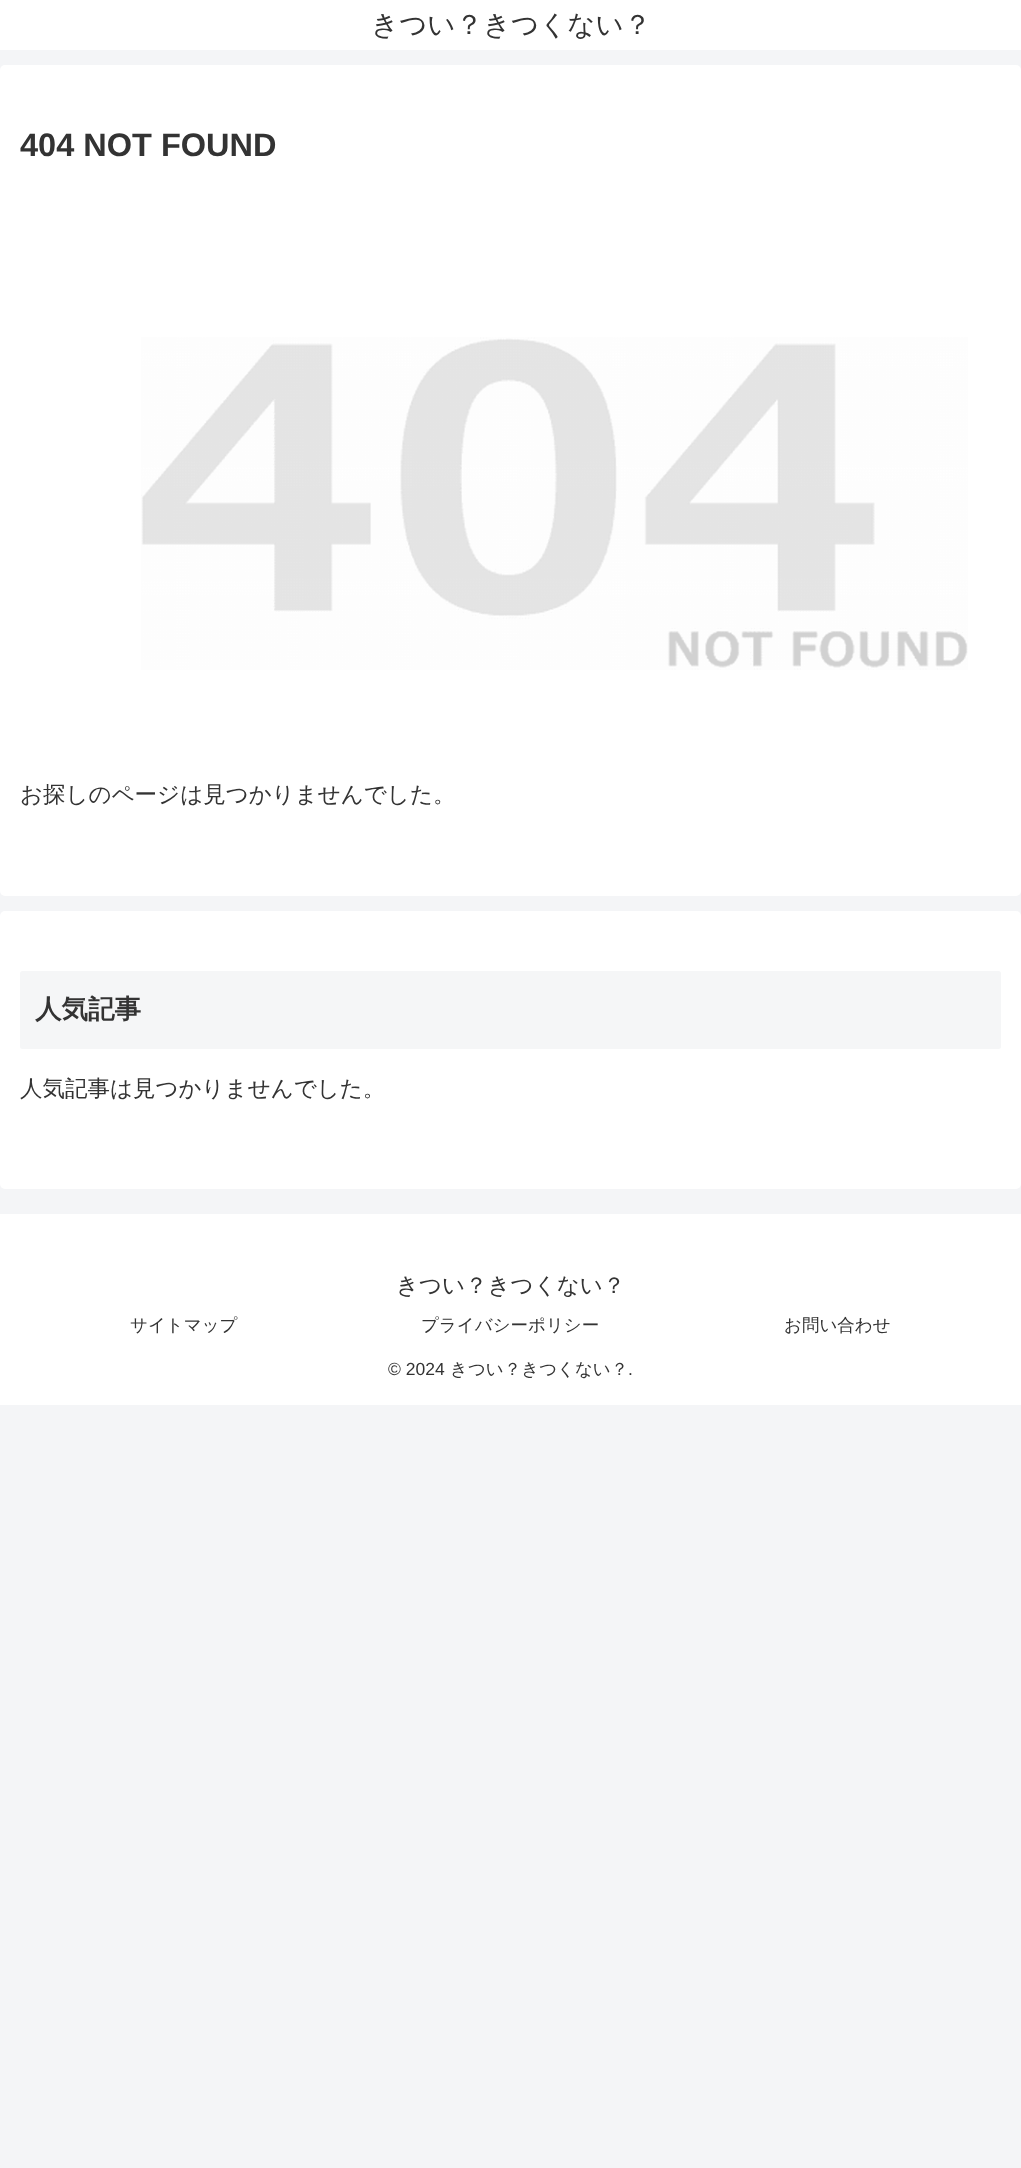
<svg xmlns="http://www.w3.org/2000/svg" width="1021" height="2168">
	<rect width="100%" height="100%" fill="#F4F5F7" />
	<rect x="0" y="0" width="1021" height="50" fill="#FFFFFF" />
	<text x="371" y="34" font-family="WenQuanYi Zen Hei" font-size="27.5" font-weight="500" fill="#333333">きつい？きつくない？</text>
	<rect x="0" y="65" width="1021" height="831" rx="5" fill="#FFFFFF" />
	<text x="20" y="156" font-family="Liberation Sans" font-size="32.5" font-weight="700" fill="#333333">404 NOT FOUND</text>
	<image x="141" y="337" width="827" height="333" href="assets/img1.png" />
	<text x="20" y="802" font-family="WenQuanYi Zen Hei" font-size="22.5" font-weight="500" fill="#333333">お探しのページは見つかりませんでした。</text>
	<rect x="0" y="911" width="1021" height="278" rx="5" fill="#FFFFFF" />
	<rect x="20" y="971" width="981" height="78" rx="2.5" fill="#F5F6F7" />
	<text x="35" y="1018" font-family="WenQuanYi Zen Hei" font-size="26.5" font-weight="700" fill="#333333">人気記事</text>
	<text x="20" y="1096" font-family="WenQuanYi Zen Hei" font-size="22.5" font-weight="500" fill="#333333">人気記事は見つかりませんでした。</text>
	<rect x="0" y="1214" width="1021" height="191" fill="#FFFFFF" />
	<text x="396" y="1293" font-family="WenQuanYi Zen Hei" font-size="22.5" font-weight="500" fill="#333333">きつい？きつくない？</text>
	<g font-family="WenQuanYi Zen Hei" font-size="17.5" font-weight="500" fill="#333333">
		<text x="130" y="1331">サイトマップ</text>
		<text x="421" y="1331">プライバシーポリシー</text>
		<text x="784" y="1331">お問い合わせ</text>
	</g>
	<text x="388" y="1375" font-family="Liberation Sans" font-size="17.5" fill="#333333">© 2024</text>
	<text x="450" y="1375" font-family="WenQuanYi Zen Hei" font-size="17.5" font-weight="500" fill="#333333">きつい？きつくない？</text>
	<text x="628" y="1375" font-family="Liberation Sans" font-size="17.5" fill="#333333">.</text>
</svg>
